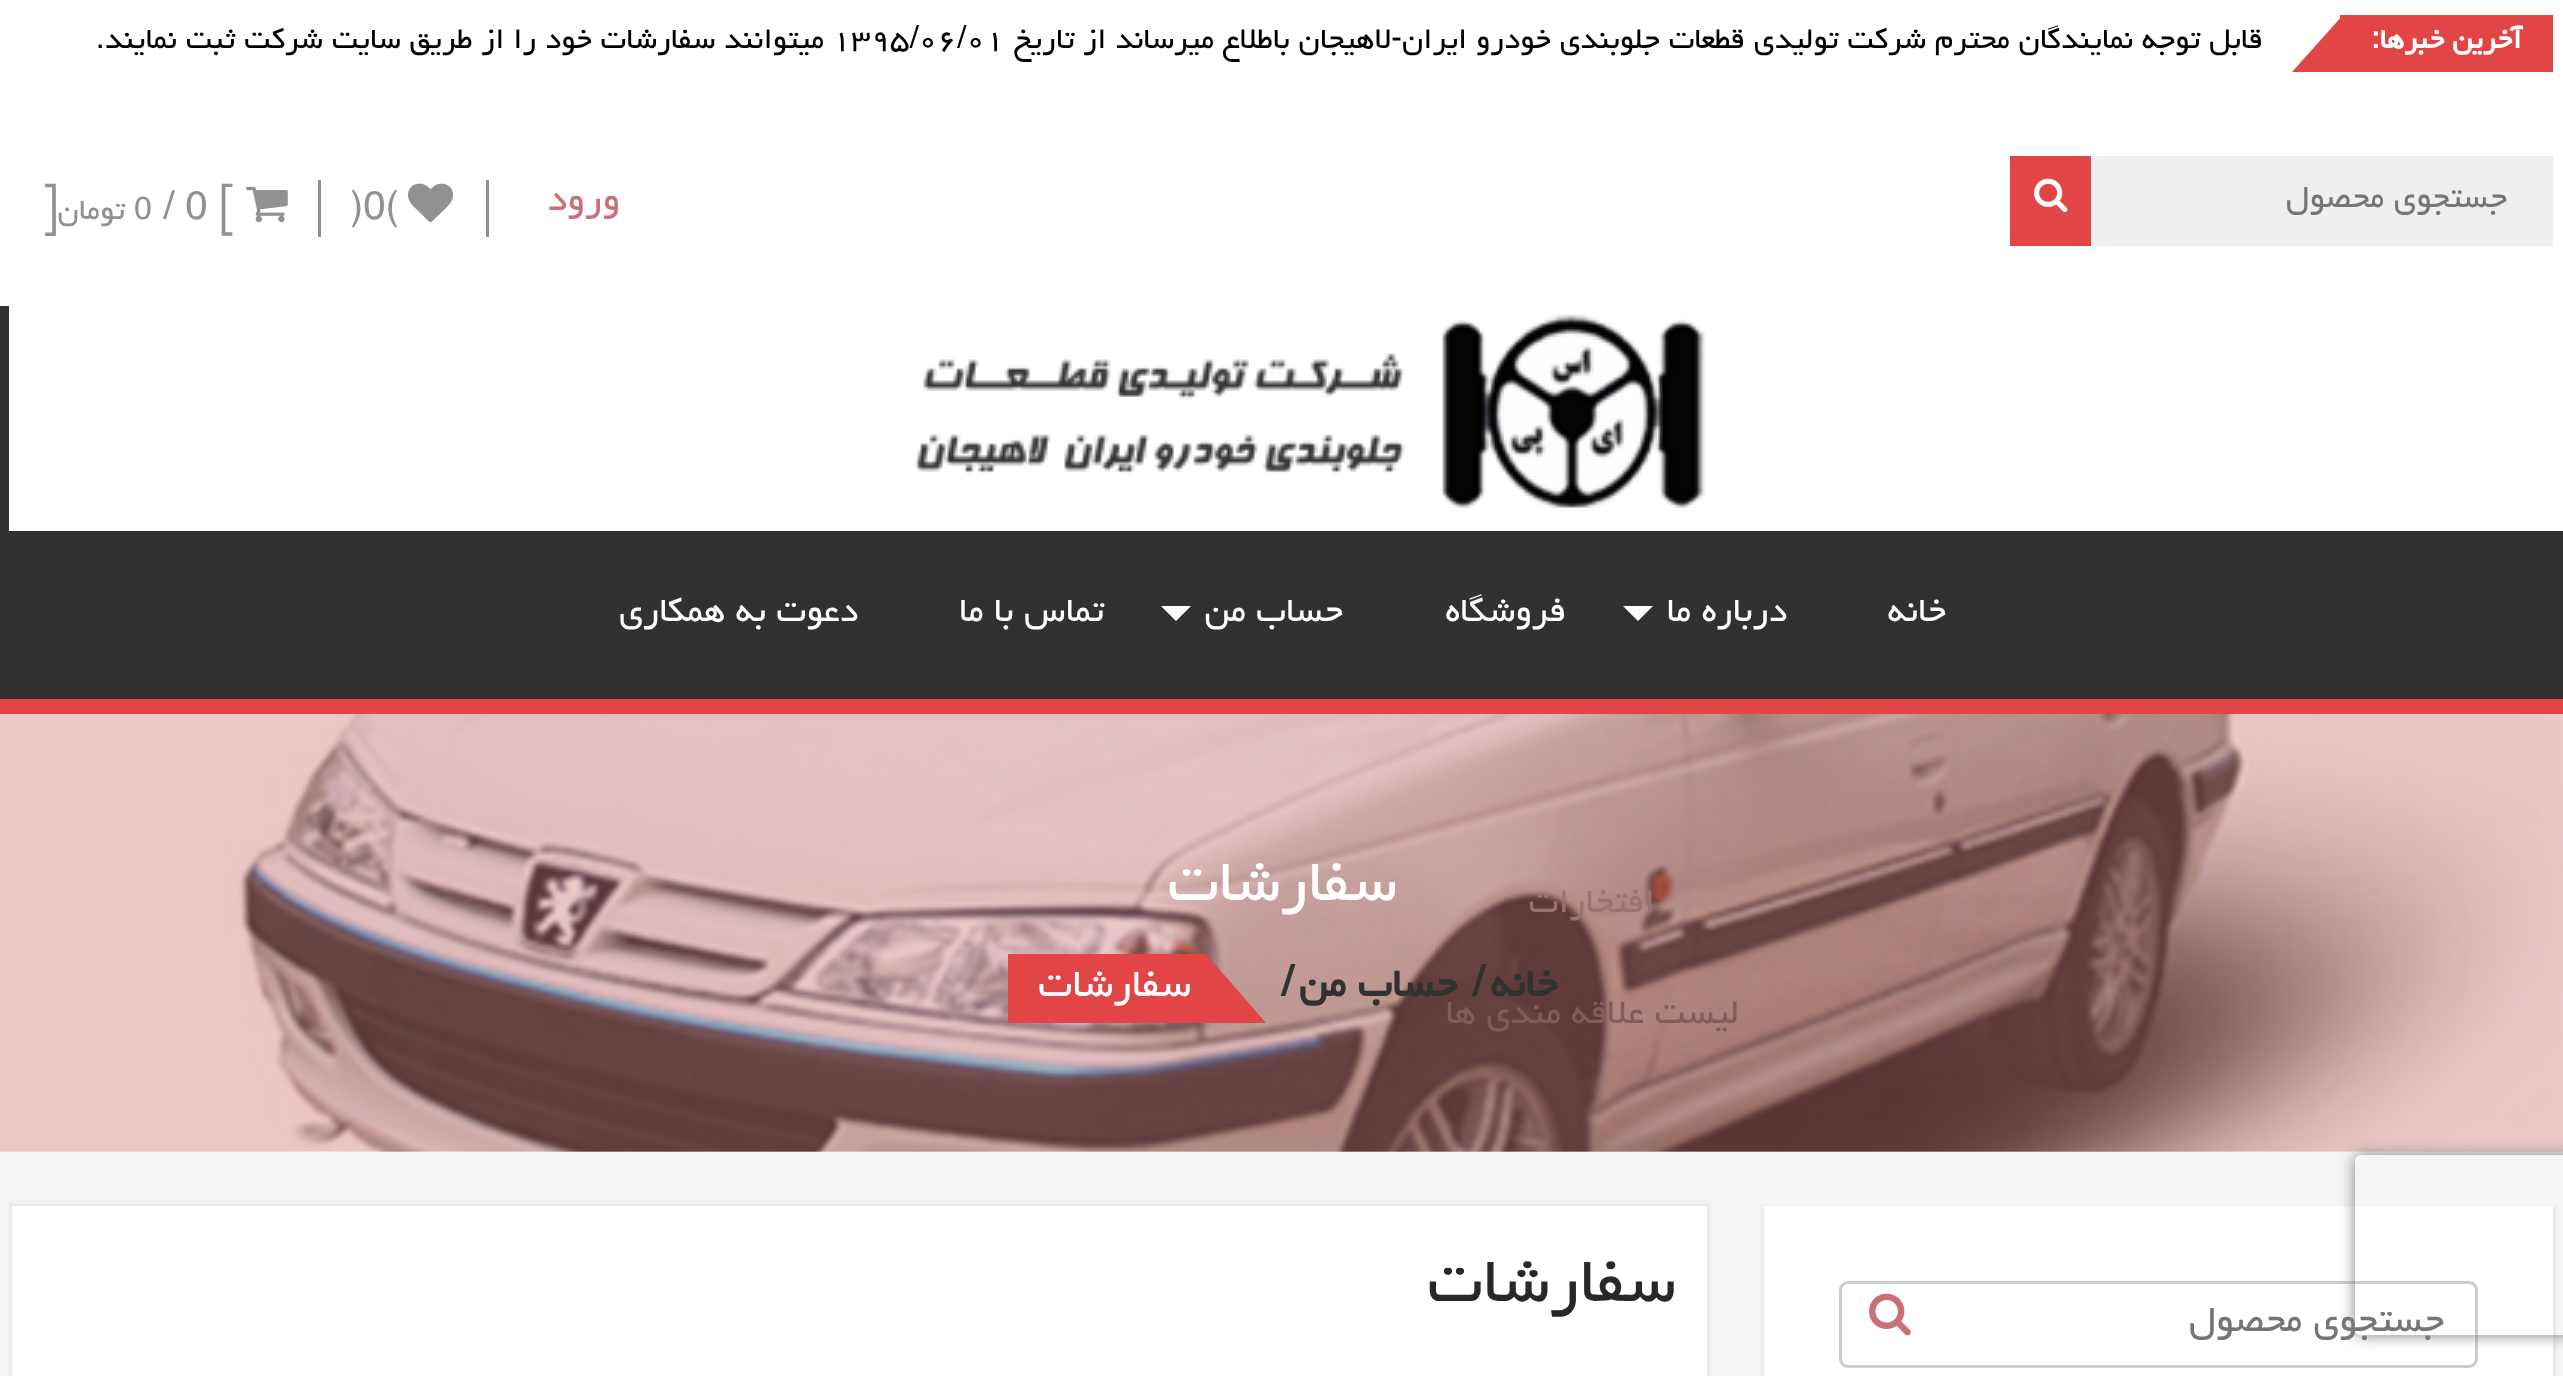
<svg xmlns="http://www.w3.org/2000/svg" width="2563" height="1376">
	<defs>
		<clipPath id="clip1"><path d="M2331 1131H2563V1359H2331ZM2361 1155H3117C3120.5 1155 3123 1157.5 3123 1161V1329C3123 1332.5 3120.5 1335 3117 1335H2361C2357.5 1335 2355 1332.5 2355 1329V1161C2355 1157.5 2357.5 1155 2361 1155Z" clip-rule="evenodd" /></clipPath>
	</defs>
	<rect width="100%" height="100%" fill="#FFFFFF" />
	<rect x="2340" y="15" width="213" height="57" fill="#E24545" />
	<text x="2522" y="48" font-family="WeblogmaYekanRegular" font-size="33.75" font-weight="700" direction="rtl" fill="#FFFFFF">آخرین خبرها:</text>
	<path d="M2343 15V72H2292Z" fill="#E24545" />
	<text x="2263" y="48" font-family="WeblogmaYekanRegular" font-size="36" direction="rtl" fill="#000000">قابل توجه نمایندگان محترم شرکت تولیدی قطعات جلوبندی خودرو ایران-لاهیجان باطلاع میرساند از تاریخ</text>
	<text x="832" y="48" font-family="WeblogmaYekanRegular" font-size="36" fill="#000000">۱۳۹۵/۰۶/۰۱</text>
	<text x="824" y="48" font-family="WeblogmaYekanRegular" font-size="36" direction="rtl" fill="#000000">میتوانند سفارشات خود را از طریق سایت شرکت ثبت نمایند.</text>
	<rect x="2091" y="156" width="462" height="90" fill="#EFEFEF" />
	<text x="2507" y="207" font-family="WeblogmaYekanRegular" font-size="39" direction="rtl" fill="#757575">جستجوی محصول</text>
	<rect x="2010" y="156" width="81" height="90" fill="#E24545" />
	<image x="2034" y="178" width="34" height="35" href="assets/img1.png" />
	<text x="620" y="210" font-family="WeblogmaYekanRegular" font-size="45" direction="rtl" fill="#C97178">ورود</text>
	<rect x="486" y="180" width="3" height="57" fill="#919191" />
	<rect x="318" y="180" width="3" height="57" fill="#919191" />
	<image x="408" y="183" width="45" height="40" href="assets/img2.png" />
	<text x="350" y="219" font-family="WeblogmaYekanRegular" font-size="45" fill="#919191">)0(</text>
	<image x="246" y="186" width="42" height="37" href="assets/img3.png" />
	<text x="163" y="219" font-family="WeblogmaYekanRegular" font-size="45" fill="#919191">/ 0 [</text>
	<text x="134" y="219" font-family="WeblogmaYekanRegular" font-size="36" fill="#919191">0</text>
	<text x="125" y="219" font-family="WeblogmaYekanRegular" font-size="36" direction="rtl" fill="#919191">تومان</text>
	<text x="42" y="219" font-family="WeblogmaYekanRegular" font-size="45" fill="#919191">]</text>
	<rect x="0" y="699" width="2563" height="15" fill="#E24545" />
	<image x="914" y="314" width="791" height="194" href="assets/img4.png" />
	<rect x="9" y="531" width="2554" height="168" fill="#313131" />
	<rect x="0" y="306" width="9" height="393" fill="#313131" />
	<g font-family="WeblogmaYekanRegular" font-size="42" direction="rtl" fill="#FFFFFF">
		<text x="1946" y="621">خانه</text>
		<text x="1566" y="621">فروشگاه</text>
		<text x="1343" y="621">حساب من</text>
	</g>
	<path d="M1161 606H1191L1176 621Z" fill="#FFFFFF" />
	<g font-family="WeblogmaYekanRegular" font-size="42" direction="rtl" fill="#FFFFFF">
		<text x="1104" y="621">تماس با ما</text>
		<text x="858" y="621">دعوت به همکاری</text>
		<text x="1787" y="621">درباره ما</text>
	</g>
	<path d="M1623 606H1653L1638 621Z" fill="#FFFFFF" />
	<image x="0" y="714" width="2563" height="438" href="assets/img5.png" />
	<text x="1655" y="912" font-family="WeblogmaYekanRegular" font-size="42" direction="rtl" fill="#9B736E">افتخارات</text>
	<text x="1739" y="1023" font-family="WeblogmaYekanRegular" font-size="42" direction="rtl" fill="#825C58">لیست علاقه مندی ها</text>
	<text x="1397" y="900" font-family="WeblogmaYekanRegular" font-size="72" direction="rtl" fill="#FFFFFF">سفارشات</text>
	<text x="1557" y="996" font-family="WeblogmaYekanRegular" font-size="48" font-weight="700" direction="rtl" fill="#313131">خانه</text>
	<text x="1472" y="996" font-family="WeblogmaYekanRegular" font-size="48" font-weight="700" fill="#313131">/</text>
	<text x="1457" y="996" font-family="WeblogmaYekanRegular" font-size="48" font-weight="700" direction="rtl" fill="#313131">حساب من</text>
	<text x="1281" y="996" font-family="WeblogmaYekanRegular" font-size="48" font-weight="700" fill="#313131">/</text>
	<rect x="1008" y="954" width="198" height="69" fill="#E24545" />
	<path d="M1206 1023V954L1266 1023Z" fill="#E24545" />
	<text x="1191" y="996" font-family="WeblogmaYekanRegular" font-size="48" direction="rtl" fill="#FFFFFF">سفارشات</text>
	<rect x="0" y="1152" width="2563" height="224" fill="#F5F5F5" />
	<rect x="9" y="1203" width="1701" height="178" fill="#000000" fill-opacity="0.05" filter="blur(1.5px)" />
	<rect x="12" y="1206" width="1695" height="170" fill="#FFFFFF" />
	<text x="1676" y="1301" font-family="WeblogmaYekanRegular" font-size="78" direction="rtl" fill="#282828">سفارشات</text>
	<rect x="1761" y="1206" width="795" height="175" fill="#000000" fill-opacity="0.05" filter="blur(1.5px)" />
	<rect x="1764" y="1206" width="789" height="170" fill="#FFFFFF" />
	<rect x="1840.5" y="1282.5" width="636" height="84" rx="7.5" fill="none" stroke="#CCCCCC" stroke-width="3" />
	<text x="2444" y="1331" font-family="WeblogmaYekanRegular" font-size="45" direction="rtl" fill="#757575">جستجوی محصول</text>
	<image x="1869" y="1293" width="42" height="43" href="assets/img6.png" />
	<g clip-path="url(#clip1)">
		<rect x="2355" y="1155" width="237" height="180" rx="6" fill="#808080" filter="blur(7.5px)" />
	</g>
</svg>
